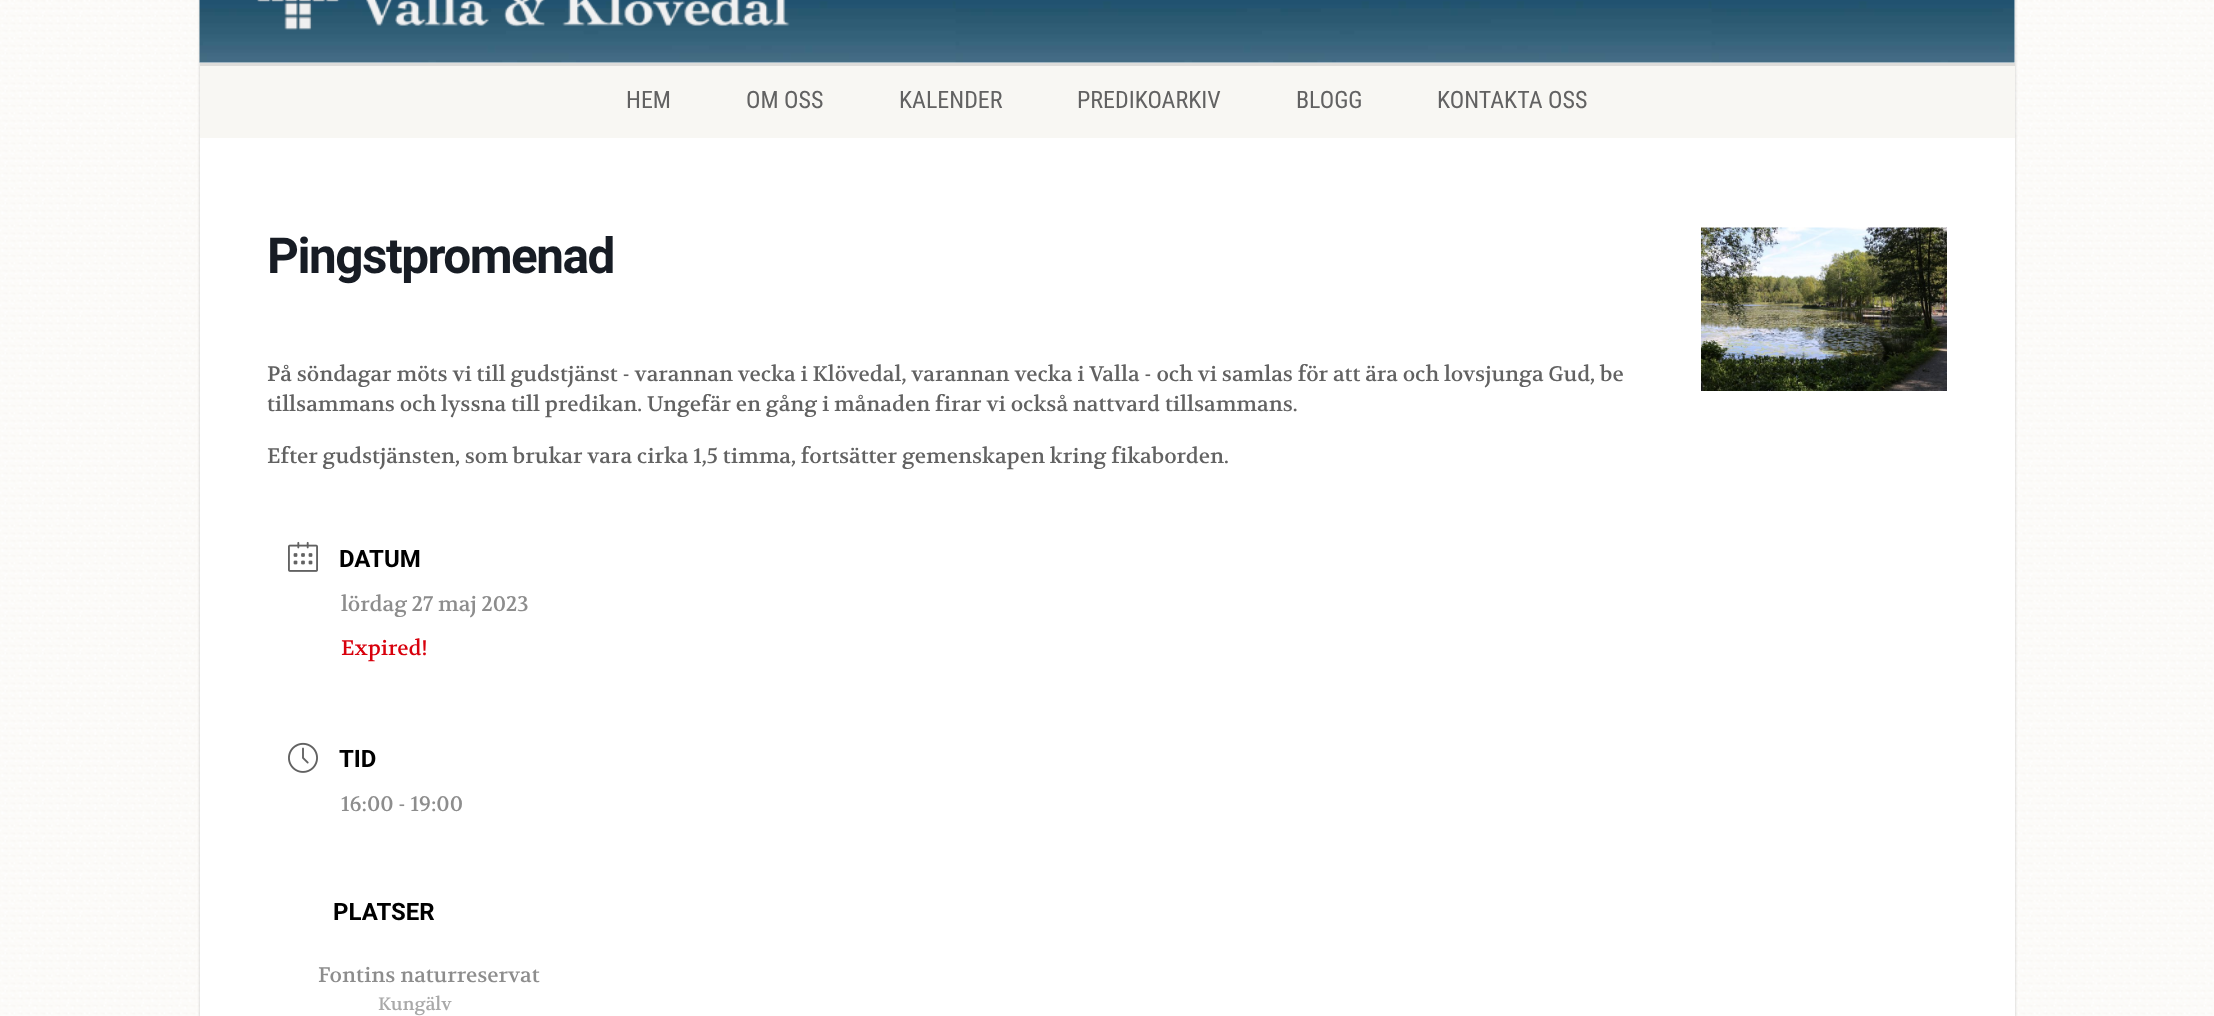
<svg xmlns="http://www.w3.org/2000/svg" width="2214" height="1016">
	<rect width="100%" height="100%" fill="#FFFFFF" />
	<image x="0" y="0" width="2214" height="1016" href="assets/img1.png" />
	<rect x="200" y="-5" width="1815" height="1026" fill="#000000" fill-opacity="0.2" filter="blur(1.5px)" />
	<rect x="200" y="0" width="1815" height="1016" fill="#FFFFFF" />
	<rect x="200" y="63" width="1815" height="75" fill="#F8F7F3" />
	<path d="M200 63V66H2015V-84H2014V63Z" fill="#000000" fill-opacity="0.1" />
	<rect x="2014" y="0" width="1" height="63" fill="#FFFFFF" fill-opacity="0.8" />
	<image x="199" y="0" width="1816" height="63" href="assets/img2.png" />
	<image x="257" y="0" width="533" height="30" href="assets/img3.png" />
	<g font-family="Roboto Condensed" font-size="24" fill="#626262">
		<text x="626" y="108">HEM</text>
		<text x="746" y="108">OM OSS</text>
		<text x="899" y="108">KALENDER</text>
		<text x="1077" y="108">PREDIKOARKIV</text>
		<text x="1296" y="108">BLOGG</text>
		<text x="1437" y="108">KONTAKTA OSS</text>
	</g>
	<text x="267" y="273" font-family="Roboto" font-size="49.5" font-weight="700" letter-spacing="-1.5" fill="#171C24">Pingstpromenad</text>
	<g font-family="Volkhov" font-size="21" fill="#626262">
		<text x="267" y="381">På söndagar möts vi till gudstjänst - varannan vecka i Klövedal, varannan vecka i Valla - och vi samlas för att ära och lovsjunga Gud, be</text>
		<text x="267" y="411">tillsammans och lyssna till predikan. Ungefär en gång i månaden firar vi också nattvard tillsammans.</text>
		<text x="267" y="463">Efter gudstjänsten, som brukar vara cirka 1,5 timma, fortsätter gemenskapen kring fikaborden.</text>
	</g>
	<image x="288" y="541" width="30" height="31" href="assets/img4.png" />
	<text x="339" y="567" font-family="Roboto" font-size="24" font-weight="700" fill="#000000">DATUM</text>
	<text x="341" y="611" font-family="Volkhov" font-size="21" fill="#8D8D8D">lördag 27 maj 2023</text>
	<text x="341" y="655" font-family="Volkhov" font-size="21" fill="#D8000C">Expired!</text>
	<image x="288" y="742" width="30" height="31" href="assets/img5.png" />
	<text x="339" y="767" font-family="Roboto" font-size="24" font-weight="700" fill="#000000">TID</text>
	<text x="341" y="811" font-family="Volkhov" font-size="21" fill="#8D8D8D">16:00 - 19:00</text>
	<image x="1701" y="227" width="246" height="164" href="assets/img6.png" />
	<text x="333" y="920" font-family="Roboto" font-size="24" font-weight="700" fill="#000000">PLATSER</text>
	<text x="318" y="982" font-family="Volkhov" font-size="21" fill="#8D8D8D">Fontins naturreservat</text>
	<text x="378" y="1010" font-family="Volkhov" font-size="18" fill="#A9A9A9">Kungälv</text>
</svg>
